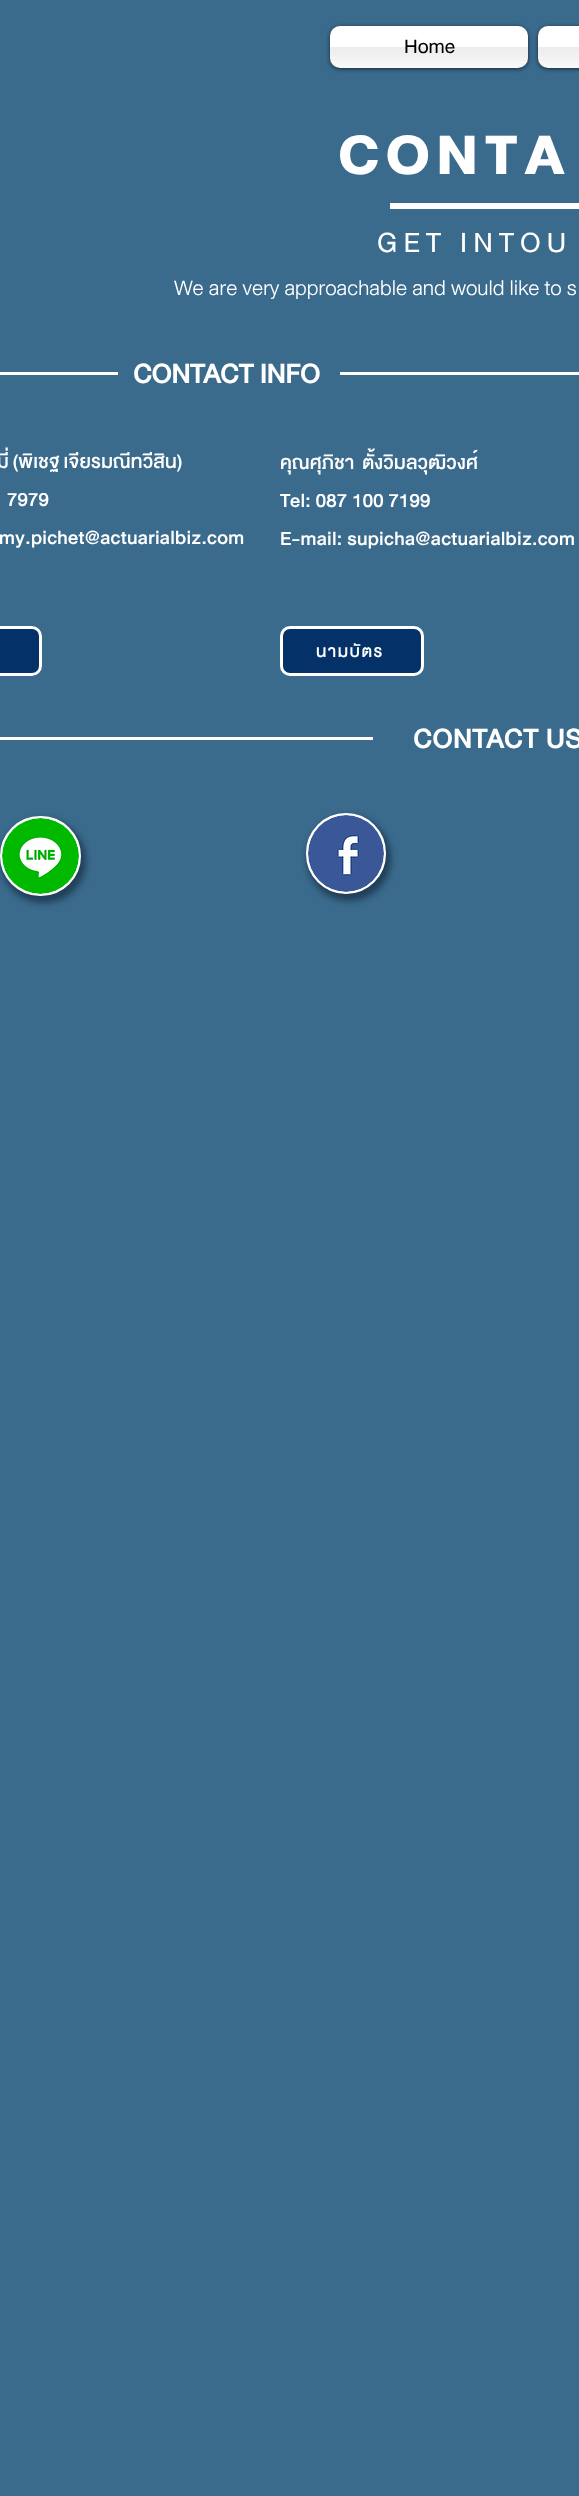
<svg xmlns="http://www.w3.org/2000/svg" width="579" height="2496">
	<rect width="100%" height="100%" fill="#3A6A8C" />
	<rect x="330" y="27" width="198" height="42" rx="10" fill="#000000" fill-opacity="0.6" filter="blur(2px)" />
	<rect x="330" y="26" width="198" height="42" rx="10" fill="#FFFFFF" />
	<image x="330" y="26" width="198" height="42" href="assets/img1.png" />
	<text x="404" y="53" font-family="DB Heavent" font-size="28" fill="#000000">Home</text>
	<rect x="538" y="27" width="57" height="42" rx="10" fill="#000000" fill-opacity="0.6" filter="blur(2px)" />
	<rect x="538" y="26" width="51" height="42" rx="10" fill="#FFFFFF" />
	<image x="538" y="26" width="41" height="42" href="assets/img2.png" />
	<text x="339" y="174" font-family="DB Heavent" font-size="80" font-weight="900" letter-spacing="8" fill="#FFFFFF">CONTA</text>
	<rect x="390" y="203" width="189" height="6" fill="#FFFFFF" />
	<text x="377" y="252" font-family="DB Heavent" font-size="40" letter-spacing="6" fill="#FFFFFF">GET INTOU</text>
	<text x="174" y="295" font-family="DB Heavent" font-size="30" font-weight="300" fill="#FFFFFF">We are very approachable and would like to s</text>
	<rect x="0" y="372" width="118" height="3" fill="#FFFFFF" />
	<text x="133" y="383" font-family="DB Heavent" font-size="38" font-weight="700" fill="#FFFFFF">CONTACT INFO</text>
	<rect x="340" y="372" width="239" height="3" fill="#FFFFFF" />
	<g font-family="DB Heavent" font-size="27" font-weight="500" letter-spacing="0.25" fill="#FFFFFF">
		<text x="-3" y="468" word-spacing="-1">มี่ (พิเชฐ เจียรมณีทวีสิน)</text>
		<text x="7" y="506">7979</text>
		<text x="-1" y="544">my.pichet@actuarialbiz.com</text>
		<text x="280" y="469" word-spacing="-1" xml:space="preserve">คุณศุภิชา  ตั้งวิมลวุฒิวงศ์</text>
		<text x="280" y="507">Tel: 087 100 7199</text>
		<text x="280" y="545">E-mail: supicha@actuarialbiz.com</text>
	</g>
	<path d="M0 626H32C37.5 626 42 630.5 42 636V666C42 671.5 37.5 676 32 676H0Z" fill="#033168" />
	<rect x="-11.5" y="627.5" width="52" height="47" rx="8.5" fill="none" stroke="#FFFFFF" stroke-width="3" />
	<rect x="281.5" y="627.5" width="141" height="47" rx="8.5" fill="#033168" stroke="#FFFFFF" stroke-width="3" />
	<text x="316" y="657" font-family="DB Heavent" font-size="24" font-weight="500" letter-spacing="1.5" fill="#FFFFFF">นามบัตร</text>
	<rect x="0" y="737" width="373" height="3" fill="#FFFFFF" />
	<text x="413" y="748" font-family="DB Heavent" font-size="38" font-weight="700" letter-spacing="0.75" fill="#FFFFFF">CONTACT US</text>
	<rect x="1" y="819" width="85" height="84" rx="42" fill="#081423" fill-opacity="0.5" filter="blur(3px)" />
	<rect x="1" y="817" width="79" height="78" rx="39" fill="#FFFFFF" stroke="#FFFFFF" stroke-width="2" />
	<image x="2" y="818" width="77" height="76" href="assets/img3.png" />
	<rect x="307" y="816" width="84" height="85" rx="42" fill="#081423" fill-opacity="0.5" filter="blur(3px)" />
	<rect x="307" y="814" width="78" height="79" rx="39" fill="#FFFFFF" stroke="#FFFFFF" stroke-width="2" />
	<image x="308" y="815" width="76" height="77" href="assets/img4.png" />
</svg>
